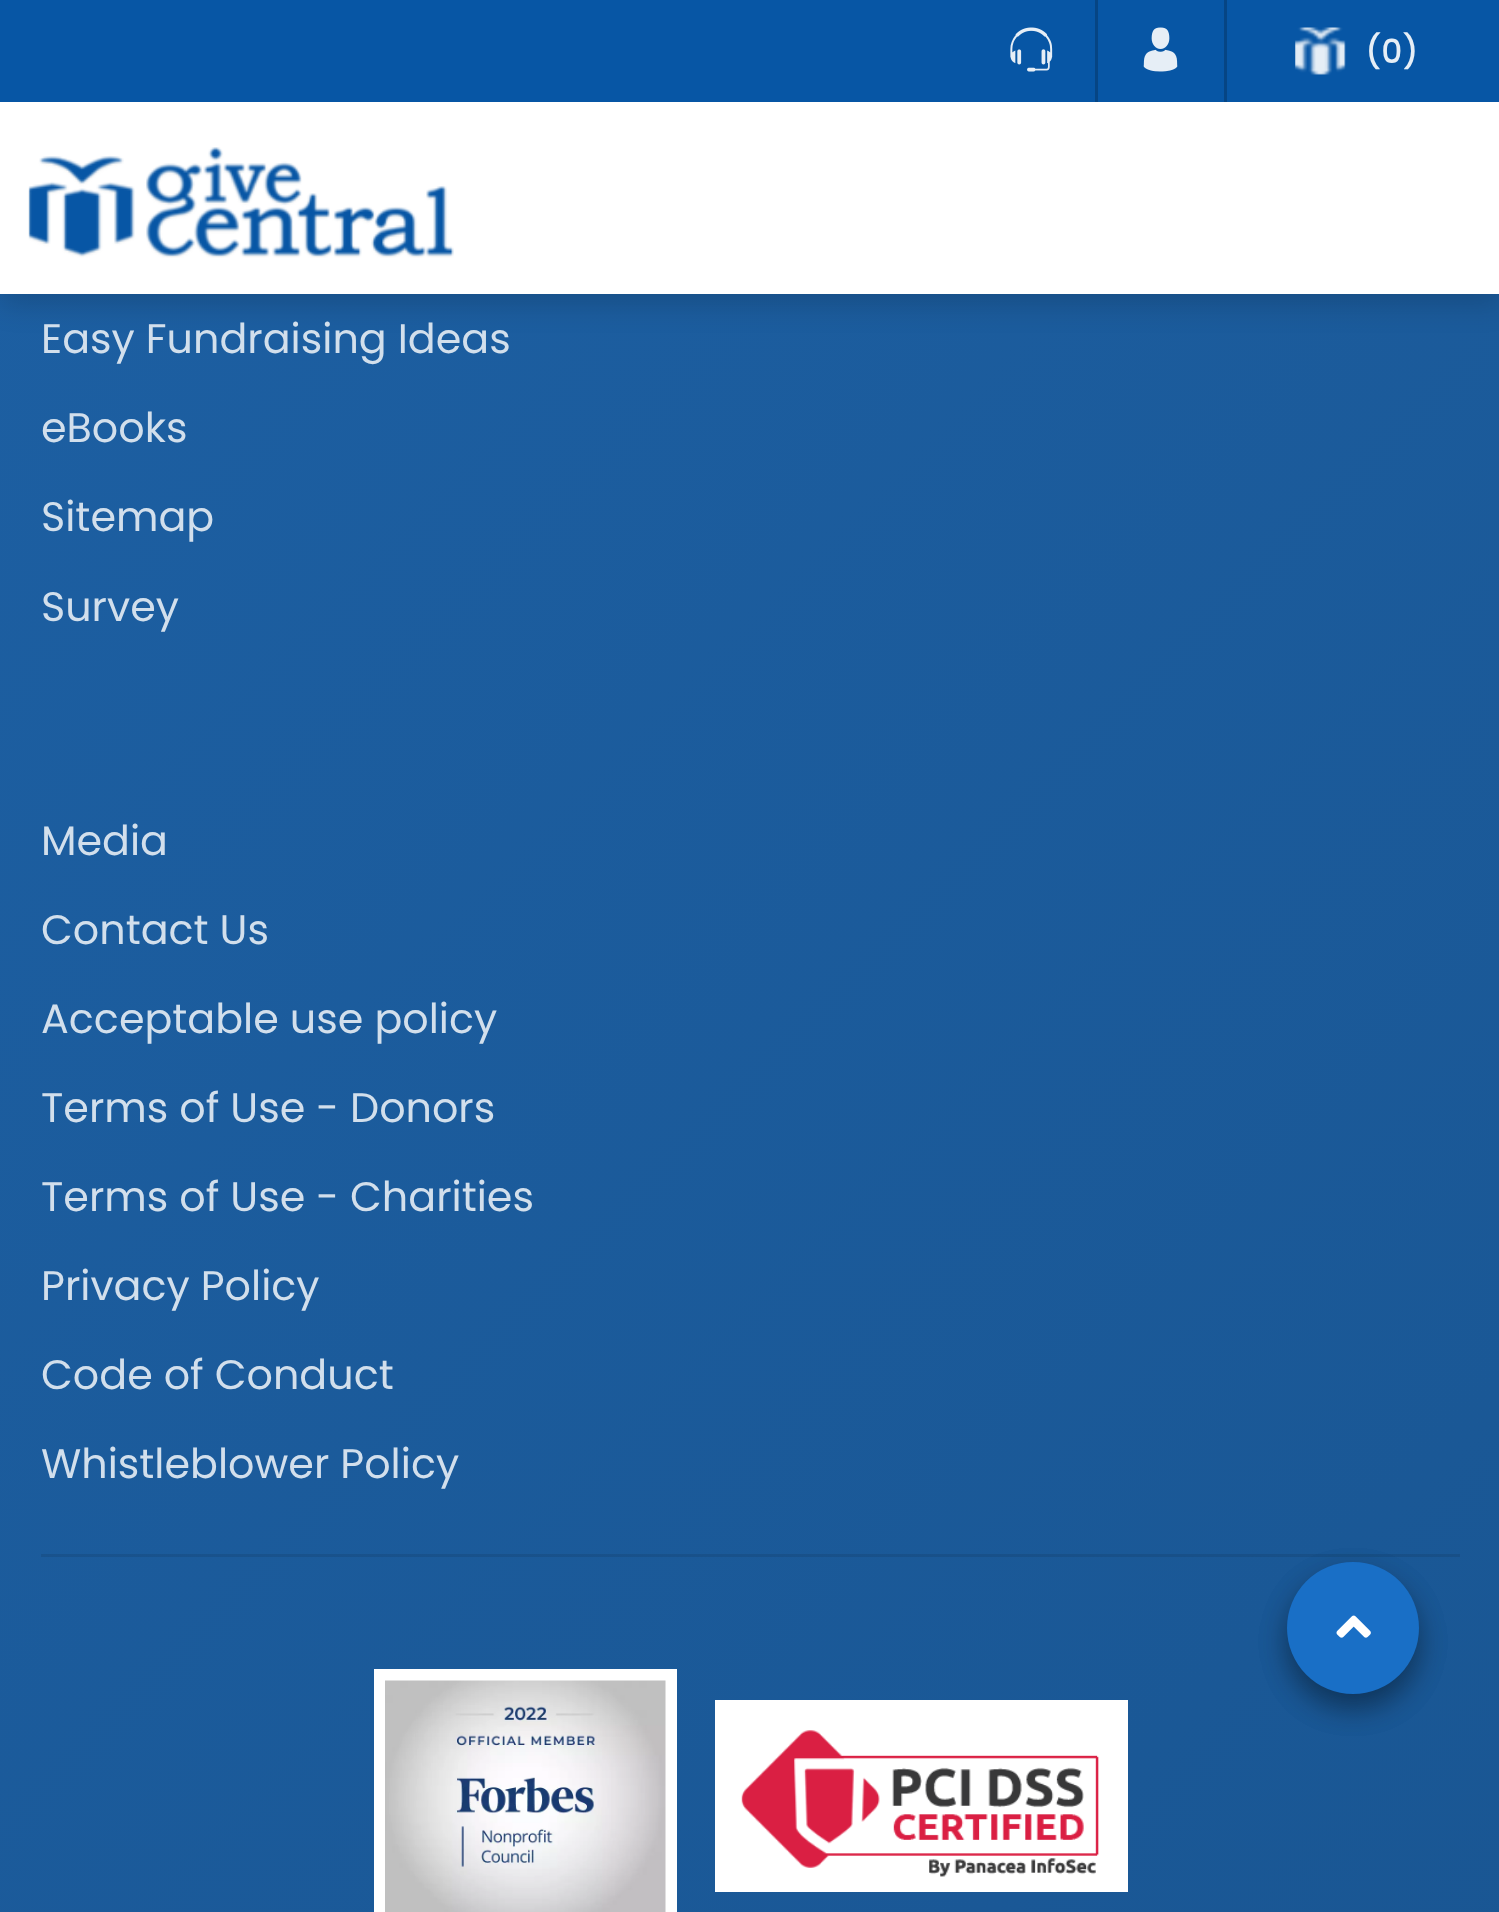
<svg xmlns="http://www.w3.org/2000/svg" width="1499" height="1912">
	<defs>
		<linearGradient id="g1" gradientUnits="userSpaceOnUse" x1="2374" y1="1655" x2="-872" y2="-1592"><stop offset="0" stop-color="#195591" /><stop offset="1" stop-color="#1F66AE" /></linearGradient>
		<linearGradient id="g2" gradientUnits="userSpaceOnUse" x1="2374" y1="1655" x2="-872" y2="-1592"><stop offset="0" stop-color="#174D83" /><stop offset="1" stop-color="#1C5C9D" /></linearGradient>
	</defs>
	<rect width="100%" height="100%" fill="#FFFFFF" />
	<rect x="0" y="294" width="1499" height="1618" fill="url(#g1)" />
	<rect x="0" y="113" width="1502" height="192" fill="#000000" fill-opacity="0.15" filter="blur(14px)" />
	<rect x="0" y="0" width="1499" height="102" fill="#0756A5" />
	<image x="1010" y="27" width="43" height="45" href="assets/img1.png" />
	<rect x="1095" y="0" width="3" height="102" fill="#064584" />
	<image x="1143" y="27" width="35" height="45" href="assets/img2.png" />
	<rect x="1224" y="0" width="3" height="102" fill="#064584" />
	<image x="1295" y="27" width="51" height="48" href="assets/img3.png" />
	<text x="1365" y="63" font-family="Poppins" font-size="33" font-weight="500" fill="#E6EEF6">(0)</text>
	<rect x="0" y="102" width="1499" height="192" fill="#FFFFFF" />
	<image x="28" y="147" width="426" height="111" href="assets/img4.png" />
	<rect x="41" y="1554" width="1419" height="3" fill="url(#g2)" />
	<g font-family="Poppins" font-size="41.25" fill="#D2DFEC">
		<text x="41" y="353">Easy Fundraising Ideas</text>
		<text x="41" y="442">eBooks</text>
		<text x="41" y="531">Sitemap</text>
		<text x="41" y="621">Survey</text>
		<text x="41" y="855">Media</text>
		<text x="41" y="944">Contact Us</text>
		<text x="41" y="1033">Acceptable use policy</text>
		<text x="41" y="1122">Terms of Use - Donors</text>
		<text x="41" y="1211">Terms of Use - Charities</text>
		<text x="41" y="1300">Privacy Policy</text>
		<text x="41" y="1389">Code of Conduct</text>
		<text x="41" y="1478">Whistleblower Policy</text>
	</g>
	<rect x="374" y="1669" width="303" height="243" fill="#FFFFFF" />
	<image x="385" y="1680" width="281" height="232" href="assets/img5.png" />
	<rect x="715" y="1700" width="413" height="192" fill="#FFFFFF" />
	<image x="741" y="1730" width="358" height="147" href="assets/img6.png" />
	<rect x="1287" y="1576" width="132" height="132" rx="66" fill="#000000" fill-opacity="0.22" filter="blur(14px)" />
	<rect x="1287" y="1576" width="132" height="132" rx="66" fill="#000000" fill-opacity="0.21" filter="blur(14px)" />
	<circle cx="1353" cy="1628" r="66" fill="#196FC6" />
	<image x="1336" y="1615" width="35" height="23" href="assets/img7.png" />
</svg>
